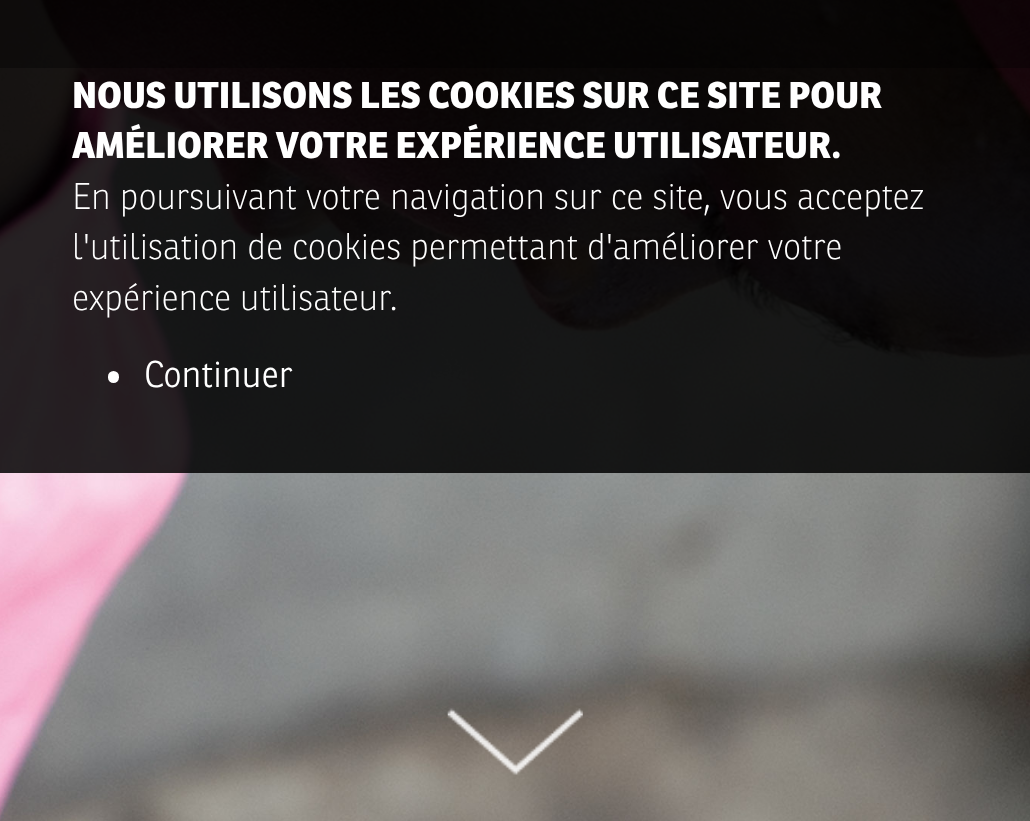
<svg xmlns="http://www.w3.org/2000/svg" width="1030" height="821">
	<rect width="100%" height="100%" fill="#FFFFFF" />
	<image x="0" y="0" width="1030" height="821" href="assets/img1.png" />
	<rect x="0" y="0" width="1030" height="68" fill="#000000" fill-opacity="0.35" />
	<image x="447" y="708" width="136" height="67" href="assets/img2.png" />
	<rect x="0" y="0" width="1030" height="473" fill="#000000" fill-opacity="0.85" />
	<g font-family="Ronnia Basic" font-size="36" font-weight="800" fill="#FFFFFF">
		<text x="72" y="108">NOUS UTILISONS LES COOKIES SUR CE SITE POUR</text>
		<text x="72" y="158">AMÉLIORER VOTRE EXPÉRIENCE UTILISATEUR.</text>
	</g>
	<g font-family="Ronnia" font-size="36" font-weight="100" fill="#FFFFFF">
		<text x="72" y="209">En poursuivant votre navigation sur ce site, vous acceptez</text>
		<text x="72" y="259">l'utilisation de cookies permettant d'améliorer votre</text>
		<text x="72" y="310">expérience utilisateur.</text>
	</g>
	<rect x="108" y="371" width="11" height="12" rx="5.5" fill="#FFFFFF" />
	<text x="144" y="387" font-family="Ronnia" font-size="36" font-weight="300" fill="#FFFFFF">Continuer</text>
</svg>
